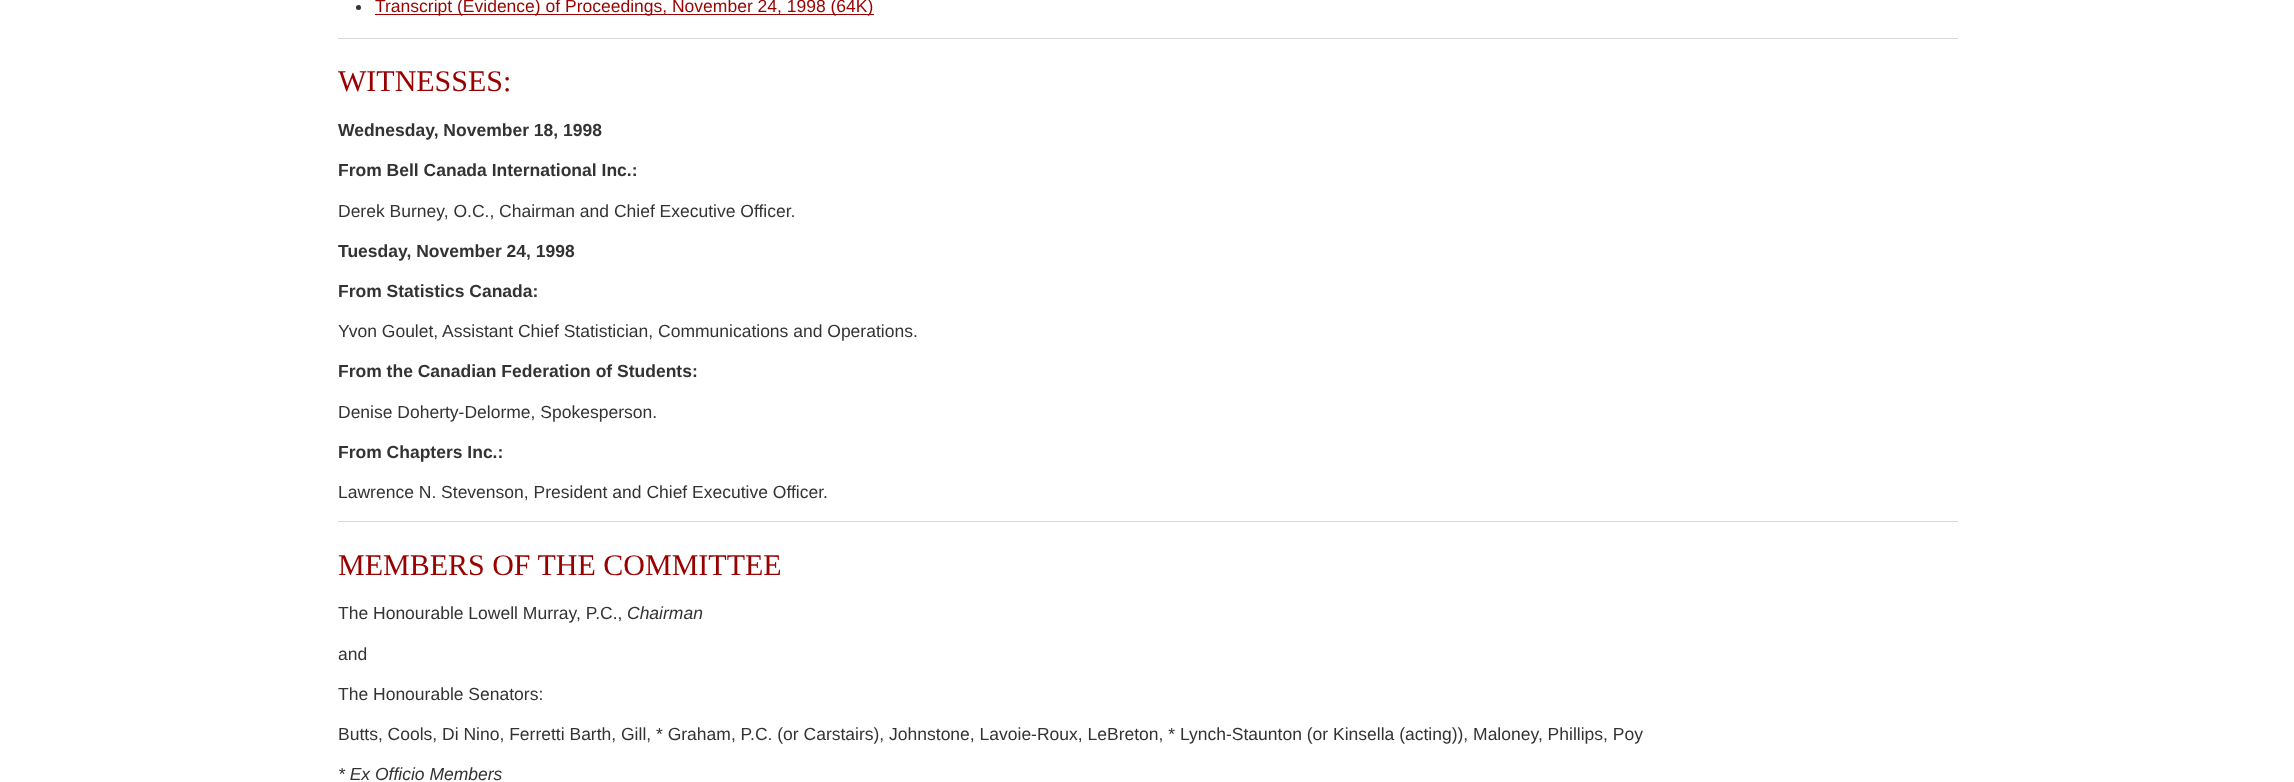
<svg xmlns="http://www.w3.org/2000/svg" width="2294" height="782">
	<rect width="100%" height="100%" fill="#FFFFFF" />
	<circle cx="358.5" cy="7.5" r="2.5" fill="#333333" />
	<rect x="375" y="14" width="499" height="1" fill="#990000" />
	<text x="375" y="12" font-family="Liberation Sans" font-size="17.5" fill="#990000">Transcript (Evidence) of Proceedings, November 24, 1998 (64K)</text>
	<rect x="338" y="38" width="1620" height="1" fill="#D9D9D9" />
	<text x="338" y="91" font-family="Liberation Serif" font-size="30" fill="#990000">WITNESSES:</text>
	<g font-family="Liberation Sans" font-size="17.5" font-weight="700" fill="#333333">
		<text x="338" y="136">Wednesday, November 18, 1998</text>
		<text x="338" y="176">From Bell Canada International Inc.:</text>
	</g>
	<text x="338" y="217" font-family="Liberation Sans" font-size="17.5" fill="#333333">Derek Burney, O.C., Chairman and Chief Executive Officer.</text>
	<g font-family="Liberation Sans" font-size="17.5" font-weight="700" fill="#333333">
		<text x="338" y="257">Tuesday, November 24, 1998</text>
		<text x="338" y="297">From Statistics Canada:</text>
	</g>
	<text x="338" y="337" font-family="Liberation Sans" font-size="17.5" fill="#333333">Yvon Goulet, Assistant Chief Statistician, Communications and Operations.</text>
	<text x="338" y="377" font-family="Liberation Sans" font-size="17.5" font-weight="700" fill="#333333">From the Canadian Federation of Students:</text>
	<text x="338" y="418" font-family="Liberation Sans" font-size="17.5" fill="#333333">Denise Doherty-Delorme, Spokesperson.</text>
	<text x="338" y="458" font-family="Liberation Sans" font-size="17.5" font-weight="700" fill="#333333">From Chapters Inc.:</text>
	<text x="338" y="498" font-family="Liberation Sans" font-size="17.5" fill="#333333">Lawrence N. Stevenson, President and Chief Executive Officer.</text>
	<rect x="338" y="521" width="1620" height="1" fill="#D9D9D9" />
	<text x="338" y="575" font-family="Liberation Serif" font-size="30" fill="#990000">MEMBERS OF THE COMMITTEE</text>
	<text x="338" y="619" font-family="Liberation Sans" font-size="17.5" fill="#333333">The Honourable Lowell Murray, P.C.,</text>
	<text x="627" y="619" font-family="Liberation Sans" font-size="17.5" font-style="italic" fill="#333333">Chairman</text>
	<g font-family="Liberation Sans" font-size="17.5" fill="#333333">
		<text x="338" y="660">and</text>
		<text x="338" y="700">The Honourable Senators:</text>
		<text x="338" y="740">Butts, Cools, Di Nino, Ferretti Barth, Gill, * Graham, P.C. (or Carstairs), Johnstone, Lavoie-Roux, LeBreton, * Lynch-Staunton (or Kinsella (acting)), Maloney, Phillips, Poy</text>
	</g>
	<text x="338" y="780" font-family="Liberation Sans" font-size="17.5" font-style="italic" fill="#333333">* Ex Officio Members</text>
</svg>
